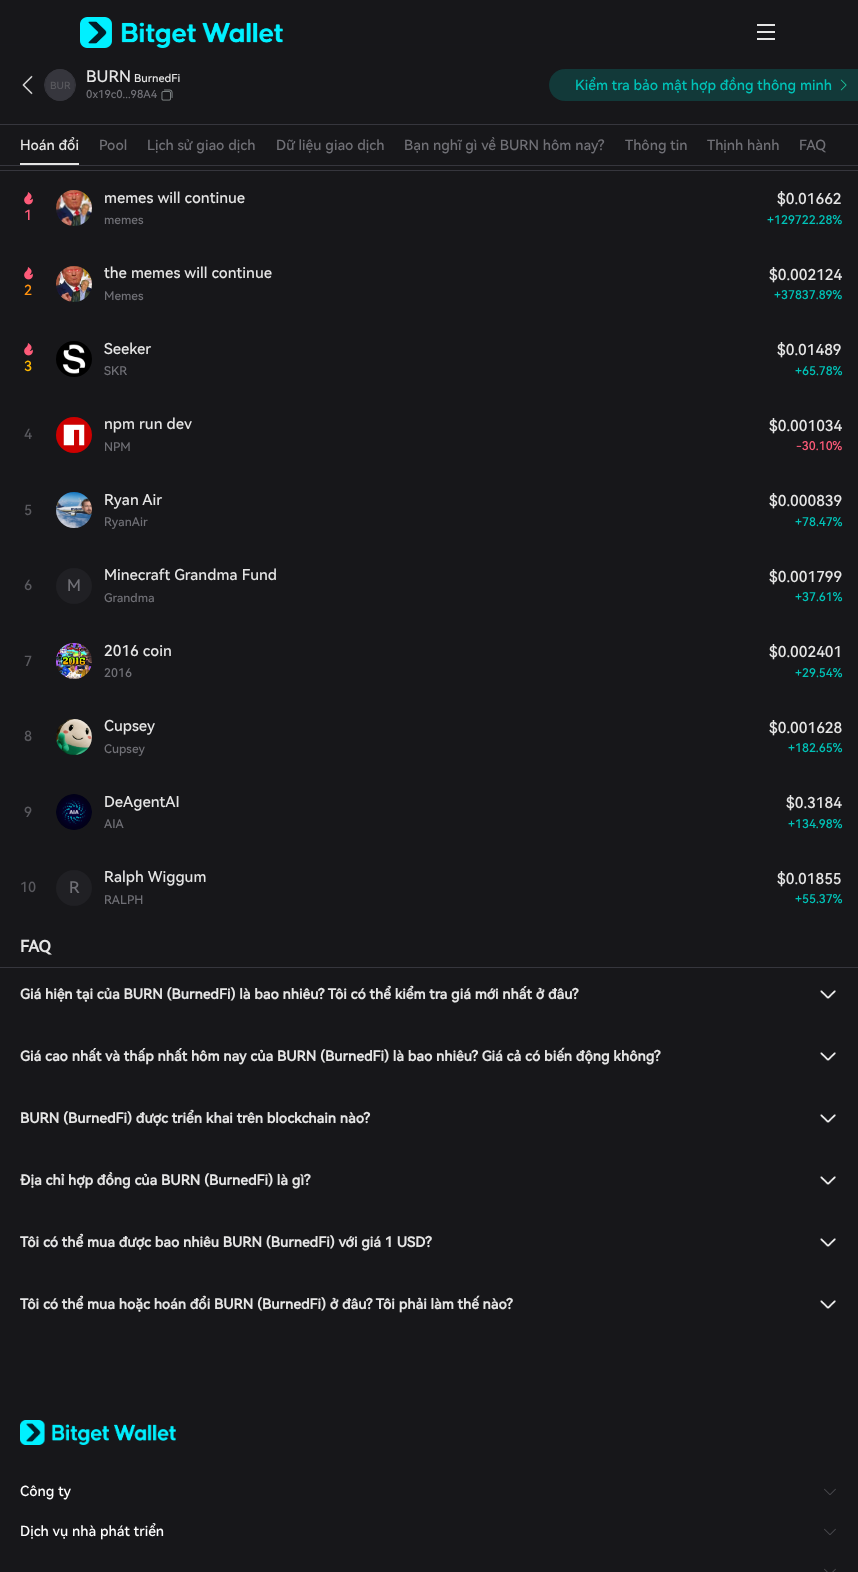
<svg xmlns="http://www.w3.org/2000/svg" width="858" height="1572">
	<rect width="100%" height="100%" fill="#17171A" />
	<rect x="0" y="44" width="858" height="1" fill="#36363D" />
	<rect x="0" y="44" width="858" height="1" fill="#17171A" fill-opacity="0.8" />
	<rect x="0" y="44" width="858" height="1" fill="#17171A" fill-opacity="0.8" />
	<image x="80" y="17" width="203" height="31" href="assets/img1.png" />
	<image x="757" y="24" width="18" height="16" href="assets/img2.png" />
	<image x="22" y="75" width="11" height="20" href="assets/img3.png" />
	<circle cx="60" cy="85" r="15.5" fill="none" stroke="#36363D" />
	<ellipse cx="60" cy="85" rx="15" ry="16" fill="#36363D" />
	<text x="50" y="89" font-family="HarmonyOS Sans" font-size="10" font-weight="500" fill="#59595E">BUR</text>
	<text x="86" y="82" font-family="HarmonyOS Sans" font-size="16" font-weight="500" fill="#E5E5E5">BURN</text>
	<text x="134" y="82" font-family="HarmonyOS Sans" font-size="11" font-weight="500" fill="#E5E5E5">BurnedFi</text>
	<text x="86" y="98" font-family="HarmonyOS Sans" font-size="11" font-weight="500" fill="#707076">0x19c0...98A4</text>
	<image x="161" y="89" width="12" height="12" href="assets/img4.png" />
	<path d="M565 69H858V101H565C556 101 549 94 549 85C549 76 556 69 565 69Z" fill="#123939" />
	<text x="575" y="90" font-family="HarmonyOS Sans" font-size="14" font-weight="500" fill="#00C2B7">Kiểm tra bảo mật hợp đồng thông minh</text>
	<image x="840" y="79" width="7" height="12" href="assets/img5.png" />
	<rect x="0" y="124" width="858" height="1" fill="#36363D" />
	<rect x="0" y="165" width="858" height="1" fill="#36363D" />
	<rect x="20" y="163" width="59" height="2" fill="#E5E5E5" />
	<text x="20" y="150" font-family="HarmonyOS Sans" font-size="14" font-weight="500" fill="#E5E5E5">Hoán đổi</text>
	<g font-family="HarmonyOS Sans" font-size="14" font-weight="500" fill="#707076">
		<text x="99" y="150">Pool</text>
		<text x="147" y="150">Lịch sử giao dịch</text>
		<text x="276" y="150">Dữ liệu giao dịch</text>
		<text x="404" y="150">Bạn nghĩ gì về BURN hôm nay?</text>
		<text x="625" y="150">Thông tin</text>
		<text x="707" y="150">Thịnh hành</text>
		<text x="799" y="150">FAQ</text>
	</g>
	<rect x="0" y="170" width="858" height="1" fill="#36363D" />
	<image x="24" y="192" width="9" height="13" href="assets/img6.png" />
	<text x="24" y="220" font-family="HarmonyOS Sans" font-size="14" font-weight="500" fill="#FE5B79">1</text>
	<image x="56" y="190" width="36" height="36" href="assets/img7.png" />
	<text x="104" y="203" font-family="HarmonyOS Sans" font-size="15" font-weight="500" fill="#E5E5E5">memes will continue</text>
	<text x="104" y="224" font-family="HarmonyOS Sans" font-size="12" font-weight="500" fill="#707076">memes</text>
	<text x="777" y="204" font-family="HarmonyOS Sans" font-size="15" font-weight="500" fill="#E5E5E5">$0.01662</text>
	<text x="767" y="224" font-family="HarmonyOS Sans" font-size="12" font-weight="500" fill="#00C2B7">+129722.28%</text>
	<image x="24" y="267" width="9" height="13" href="assets/img6.png" />
	<text x="24" y="295" font-family="HarmonyOS Sans" font-size="14" font-weight="500" fill="#FF910E">2</text>
	<image x="56" y="266" width="36" height="36" href="assets/img8.png" />
	<text x="104" y="278" font-family="HarmonyOS Sans" font-size="15" font-weight="500" fill="#E5E5E5">the memes will continue</text>
	<text x="104" y="300" font-family="HarmonyOS Sans" font-size="12" font-weight="500" fill="#707076">Memes</text>
	<text x="769" y="280" font-family="HarmonyOS Sans" font-size="15" font-weight="500" fill="#E5E5E5">$0.002124</text>
	<text x="774" y="299" font-family="HarmonyOS Sans" font-size="12" font-weight="500" fill="#00C2B7">+37837.89%</text>
	<image x="24" y="343" width="9" height="13" href="assets/img6.png" />
	<text x="24" y="371" font-family="HarmonyOS Sans" font-size="14" font-weight="500" fill="#FFB800">3</text>
	<image x="56" y="341" width="36" height="36" href="assets/img9.png" />
	<text x="104" y="354" font-family="HarmonyOS Sans" font-size="15" font-weight="500" fill="#E5E5E5">Seeker</text>
	<text x="104" y="375" font-family="HarmonyOS Sans" font-size="12" font-weight="500" fill="#707076">SKR</text>
	<text x="777" y="355" font-family="HarmonyOS Sans" font-size="15" font-weight="500" fill="#E5E5E5">$0.01489</text>
	<text x="795" y="375" font-family="HarmonyOS Sans" font-size="12" font-weight="500" fill="#00C2B7">+65.78%</text>
	<text x="24" y="439" font-family="HarmonyOS Sans" font-size="14" font-weight="500" fill="#59595E">4</text>
	<image x="56" y="417" width="36" height="36" href="assets/img10.png" />
	<text x="104" y="429" font-family="HarmonyOS Sans" font-size="15" font-weight="500" fill="#E5E5E5">npm run dev</text>
	<text x="104" y="451" font-family="HarmonyOS Sans" font-size="12" font-weight="500" fill="#707076">NPM</text>
	<text x="769" y="431" font-family="HarmonyOS Sans" font-size="15" font-weight="500" fill="#E5E5E5">$0.001034</text>
	<text x="796" y="450" font-family="HarmonyOS Sans" font-size="12" font-weight="500" fill="#FE5B79">-30.10%</text>
	<text x="24" y="515" font-family="HarmonyOS Sans" font-size="14" font-weight="500" fill="#59595E">5</text>
	<image x="56" y="492" width="36" height="36" href="assets/img11.png" />
	<text x="104" y="505" font-family="HarmonyOS Sans" font-size="15" font-weight="500" fill="#E5E5E5">Ryan Air</text>
	<text x="104" y="526" font-family="HarmonyOS Sans" font-size="12" font-weight="500" fill="#707076">RyanAir</text>
	<text x="769" y="506" font-family="HarmonyOS Sans" font-size="15" font-weight="500" fill="#E5E5E5">$0.000839</text>
	<text x="795" y="526" font-family="HarmonyOS Sans" font-size="12" font-weight="500" fill="#00C2B7">+78.47%</text>
	<text x="24" y="590" font-family="HarmonyOS Sans" font-size="14" font-weight="500" fill="#59595E">6</text>
	<circle cx="74" cy="586" r="18" fill="#202024" />
	<text x="67" y="591" font-family="HarmonyOS Sans" font-size="16" font-weight="500" fill="#707076">M</text>
	<text x="104" y="580" font-family="HarmonyOS Sans" font-size="15" font-weight="500" fill="#E5E5E5">Minecraft Grandma Fund</text>
	<text x="104" y="602" font-family="HarmonyOS Sans" font-size="12" font-weight="500" fill="#707076">Grandma</text>
	<text x="769" y="582" font-family="HarmonyOS Sans" font-size="15" font-weight="500" fill="#E5E5E5">$0.001799</text>
	<text x="795" y="601" font-family="HarmonyOS Sans" font-size="12" font-weight="500" fill="#00C2B7">+37.61%</text>
	<text x="24" y="666" font-family="HarmonyOS Sans" font-size="14" font-weight="500" fill="#59595E">7</text>
	<image x="56" y="643" width="36" height="36" href="assets/img12.png" />
	<text x="104" y="656" font-family="HarmonyOS Sans" font-size="15" font-weight="500" fill="#E5E5E5">2016 coin</text>
	<text x="104" y="677" font-family="HarmonyOS Sans" font-size="12" font-weight="500" fill="#707076">2016</text>
	<text x="769" y="657" font-family="HarmonyOS Sans" font-size="15" font-weight="500" fill="#E5E5E5">$0.002401</text>
	<text x="795" y="677" font-family="HarmonyOS Sans" font-size="12" font-weight="500" fill="#00C2B7">+29.54%</text>
	<text x="24" y="741" font-family="HarmonyOS Sans" font-size="14" font-weight="500" fill="#59595E">8</text>
	<image x="56" y="719" width="36" height="36" href="assets/img13.png" />
	<text x="104" y="731" font-family="HarmonyOS Sans" font-size="15" font-weight="500" fill="#E5E5E5">Cupsey</text>
	<text x="104" y="753" font-family="HarmonyOS Sans" font-size="12" font-weight="500" fill="#707076">Cupsey</text>
	<text x="769" y="733" font-family="HarmonyOS Sans" font-size="15" font-weight="500" fill="#E5E5E5">$0.001628</text>
	<text x="788" y="752" font-family="HarmonyOS Sans" font-size="12" font-weight="500" fill="#00C2B7">+182.65%</text>
	<text x="24" y="817" font-family="HarmonyOS Sans" font-size="14" font-weight="500" fill="#59595E">9</text>
	<image x="56" y="794" width="36" height="36" href="assets/img14.png" />
	<text x="104" y="807" font-family="HarmonyOS Sans" font-size="15" font-weight="500" fill="#E5E5E5">DeAgentAI</text>
	<text x="104" y="828" font-family="HarmonyOS Sans" font-size="12" font-weight="500" fill="#707076">AIA</text>
	<text x="786" y="808" font-family="HarmonyOS Sans" font-size="15" font-weight="500" fill="#E5E5E5">$0.3184</text>
	<text x="788" y="828" font-family="HarmonyOS Sans" font-size="12" font-weight="500" fill="#00C2B7">+134.98%</text>
	<text x="20" y="892" font-family="HarmonyOS Sans" font-size="14" font-weight="500" fill="#59595E">10</text>
	<circle cx="74" cy="888" r="18" fill="#202024" />
	<text x="69" y="893" font-family="HarmonyOS Sans" font-size="16" font-weight="500" fill="#707076">R</text>
	<text x="104" y="882" font-family="HarmonyOS Sans" font-size="15" font-weight="500" fill="#E5E5E5">Ralph Wiggum</text>
	<text x="104" y="904" font-family="HarmonyOS Sans" font-size="12" font-weight="500" fill="#707076">RALPH</text>
	<text x="777" y="884" font-family="HarmonyOS Sans" font-size="15" font-weight="500" fill="#E5E5E5">$0.01855</text>
	<text x="795" y="903" font-family="HarmonyOS Sans" font-size="12" font-weight="500" fill="#00C2B7">+55.37%</text>
	<rect x="0" y="967" width="858" height="1" fill="#36363D" />
	<text x="20" y="952" font-family="HarmonyOS Sans" font-size="16" font-weight="700" fill="#E5E5E5">FAQ</text>
	<text x="20" y="999" font-family="HarmonyOS Sans" font-size="14" font-weight="700" fill="#E5E5E5">Giá hiện tại của BURN (BurnedFi) là bao nhiêu? Tôi có thể kiểm tra giá mới nhất ở đâu?</text>
	<image x="820" y="990" width="16" height="9" href="assets/img15.png" />
	<text x="20" y="1061" font-family="HarmonyOS Sans" font-size="14" font-weight="700" fill="#E5E5E5">Giá cao nhất và thấp nhất hôm nay của BURN (BurnedFi) là bao nhiêu? Giá cả có biến động không?</text>
	<image x="820" y="1052" width="16" height="9" href="assets/img15.png" />
	<text x="20" y="1123" font-family="HarmonyOS Sans" font-size="14" font-weight="700" fill="#E5E5E5">BURN (BurnedFi) được triển khai trên blockchain nào?</text>
	<image x="820" y="1114" width="16" height="9" href="assets/img15.png" />
	<text x="20" y="1185" font-family="HarmonyOS Sans" font-size="14" font-weight="700" fill="#E5E5E5">Địa chỉ hợp đồng của BURN (BurnedFi) là gì?</text>
	<image x="820" y="1176" width="16" height="9" href="assets/img15.png" />
	<text x="20" y="1247" font-family="HarmonyOS Sans" font-size="14" font-weight="700" fill="#E5E5E5">Tôi có thể mua được bao nhiêu BURN (BurnedFi) với giá 1 USD?</text>
	<image x="820" y="1238" width="16" height="9" href="assets/img15.png" />
	<text x="20" y="1309" font-family="HarmonyOS Sans" font-size="14" font-weight="700" fill="#E5E5E5">Tôi có thể mua hoặc hoán đổi BURN (BurnedFi) ở đâu? Tôi phải làm thế nào?</text>
	<image x="820" y="1300" width="16" height="9" href="assets/img15.png" />
	<image x="20" y="1420" width="156" height="25" href="assets/img16.png" />
	<text x="20" y="1496" font-family="HarmonyOS Sans" font-size="14" font-weight="500" fill="#FFFFFF">Công ty</text>
	<image x="824" y="1488" width="12" height="7" href="assets/img17.png" />
	<text x="20" y="1536" font-family="HarmonyOS Sans" font-size="14" font-weight="500" fill="#FFFFFF">Dịch vụ nhà phát triển</text>
	<image x="824" y="1528" width="12" height="7" href="assets/img17.png" />
	<image x="824" y="1568" width="12" height="4" href="assets/img18.png" />
</svg>
